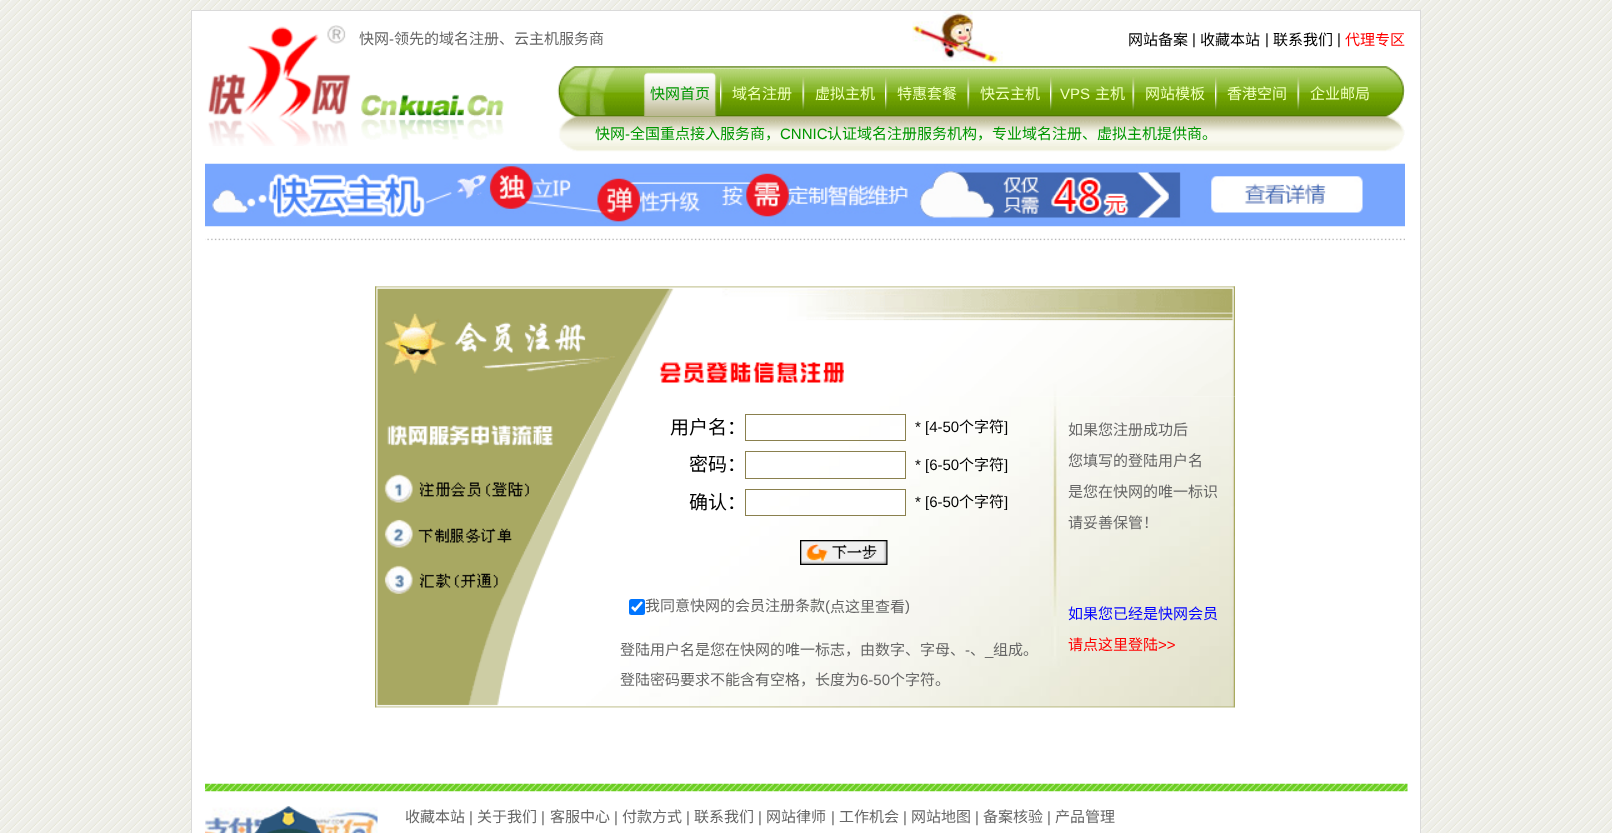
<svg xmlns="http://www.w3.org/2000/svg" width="1612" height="833">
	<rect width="100%" height="100%" fill="#FFFFFF" />
	<image x="0" y="0" width="1612" height="833" href="assets/img1.png" />
	<rect x="192" y="11" width="1228" height="822" fill="#FFFFFF" />
	<image x="912" y="11" width="91" height="56" href="assets/img2.png" />
	<rect x="191.5" y="10.5" width="1229" height="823" fill="none" stroke="#DADADA" />
	<image x="208" y="25" width="143" height="121" href="assets/img3.png" />
	<text x="359" y="44" font-family="Noto Sans CJK SC" font-size="15" fill="#666666">快网</text>
	<text x="389" y="44" font-family="Liberation Sans" font-size="15" fill="#666666">-</text>
	<text x="394" y="44" font-family="Noto Sans CJK SC" font-size="15" fill="#666666">领先的域名注册、云主机服务商</text>
	<text x="1128" y="45" font-family="Noto Sans CJK SC" font-size="15" fill="#000000">网站备案</text>
	<text x="1192" y="44" font-family="Liberation Sans" font-size="15" fill="#000000">|</text>
	<text x="1200" y="45" font-family="Noto Sans CJK SC" font-size="15" fill="#000000">收藏本站</text>
	<text x="1265" y="44" font-family="Liberation Sans" font-size="15" fill="#000000">|</text>
	<text x="1273" y="45" font-family="Noto Sans CJK SC" font-size="15" fill="#000000">联系我们</text>
	<text x="1337" y="44" font-family="Liberation Sans" font-size="15" fill="#000000">|</text>
	<text x="1345" y="45" font-family="Noto Sans CJK SC" font-size="15" fill="#FF0000">代理专区</text>
	<image x="361" y="94" width="143" height="46" href="assets/img4.png" />
	<image x="557" y="66" width="848" height="86" href="assets/img5.png" />
	<image x="643" y="72" width="74" height="44" href="assets/img6.png" />
	<text x="650" y="99" font-family="Noto Sans CJK SC" font-size="15" fill="#009600">快网首页</text>
	<image x="720" y="77" width="3" height="34" href="assets/img7.png" />
	<text x="732" y="99" font-family="Noto Sans CJK SC" font-size="15" fill="#EEFFBC">域名注册</text>
	<image x="802" y="77" width="3" height="34" href="assets/img8.png" />
	<text x="815" y="99" font-family="Noto Sans CJK SC" font-size="15" fill="#EEFFBC">虚拟主机</text>
	<image x="885" y="77" width="3" height="34" href="assets/img7.png" />
	<text x="897" y="99" font-family="Noto Sans CJK SC" font-size="15" fill="#EEFFBC">特惠套餐</text>
	<image x="967" y="77" width="3" height="34" href="assets/img8.png" />
	<text x="980" y="99" font-family="Noto Sans CJK SC" font-size="15" fill="#EEFFBC">快云主机</text>
	<image x="1050" y="77" width="3" height="34" href="assets/img7.png" />
	<text x="1060" y="99" font-family="Liberation Sans" font-size="15" fill="#EEFFBC">VPS</text>
	<text x="1095" y="99" font-family="Noto Sans CJK SC" font-size="15" fill="#EEFFBC">主机</text>
	<image x="1132" y="77" width="3" height="34" href="assets/img8.png" />
	<text x="1145" y="99" font-family="Noto Sans CJK SC" font-size="15" fill="#EEFFBC">网站模板</text>
	<image x="1215" y="77" width="3" height="34" href="assets/img7.png" />
	<text x="1227" y="99" font-family="Noto Sans CJK SC" font-size="15" fill="#EEFFBC">香港空间</text>
	<image x="1297" y="77" width="3" height="34" href="assets/img8.png" />
	<text x="1310" y="99" font-family="Noto Sans CJK SC" font-size="15" fill="#EEFFBC">企业邮局</text>
	<text x="595" y="139" font-family="Noto Sans CJK SC" font-size="15" fill="#009600">快网</text>
	<text x="625" y="139" font-family="Liberation Sans" font-size="15" fill="#009600">-</text>
	<text x="630" y="139" font-family="Noto Sans CJK SC" font-size="15" fill="#009600">全国重点接入服务商，</text>
	<text x="780" y="139" font-family="Liberation Sans" font-size="15" fill="#009600">CNNIC</text>
	<text x="827" y="139" font-family="Noto Sans CJK SC" font-size="15" fill="#009600">认证域名注册服务机构，专业域名注册、虚拟主机提供商。</text>
	<image x="205" y="163" width="1200" height="64" href="assets/img9.png" />
	<image x="205" y="238" width="1200" height="3" href="assets/img10.png" />
	<image x="375" y="286" width="245" height="422" href="assets/img11.png" />
	<image x="620" y="286" width="615" height="111" href="assets/img12.png" />
	<image x="620" y="396" width="615" height="312" href="assets/img13.png" />
	<text x="670" y="434" font-family="Noto Sans CJK SC" font-size="19" fill="#000000">用户名：</text>
	<rect x="890" y="426" width="15" height="14" fill="#FFFFFF" />
	<rect x="745.5" y="414.5" width="160" height="26" fill="none" stroke="#8A804E" />
	<text x="915" y="432" font-family="Liberation Sans" font-size="15" fill="#000000">* [4-50</text>
	<text x="959" y="432" font-family="Noto Sans CJK SC" font-size="15" fill="#000000">个字符</text>
	<text x="1004" y="432" font-family="Liberation Sans" font-size="15" fill="#000000">]</text>
	<text x="689" y="471" font-family="Noto Sans CJK SC" font-size="19" fill="#000000">密码：</text>
	<rect x="840" y="452" width="65" height="26" fill="#FFFFFF" />
	<rect x="745.5" y="451.5" width="160" height="27" fill="none" stroke="#8A804E" />
	<text x="915" y="470" font-family="Liberation Sans" font-size="15" fill="#000000">* [6-50</text>
	<text x="959" y="470" font-family="Noto Sans CJK SC" font-size="15" fill="#000000">个字符</text>
	<text x="1004" y="470" font-family="Liberation Sans" font-size="15" fill="#000000">]</text>
	<text x="689" y="509" font-family="Noto Sans CJK SC" font-size="19" fill="#000000">确认：</text>
	<rect x="810" y="490" width="95" height="25" fill="#FFFFFF" />
	<rect x="745.5" y="489.5" width="160" height="26" fill="none" stroke="#8A804E" />
	<text x="915" y="507" font-family="Liberation Sans" font-size="15" fill="#000000">* [6-50</text>
	<text x="959" y="507" font-family="Noto Sans CJK SC" font-size="15" fill="#000000">个字符</text>
	<text x="1004" y="507" font-family="Liberation Sans" font-size="15" fill="#000000">]</text>
	<image x="800" y="540" width="88" height="25" href="assets/img14.png" />
	<rect x="629" y="599" width="16" height="16" rx="2.5" fill="#0075FF" />
	<path d="M632 607L635 610L642 602" fill="none" stroke="#FFFFFF" stroke-width="2.6" />
	<text x="645" y="611" font-family="Noto Sans CJK SC" font-size="15" fill="#666666">我同意快网的会员注册条款</text>
	<text x="825" y="611" font-family="Liberation Sans" font-size="15" fill="#666666">(</text>
	<text x="830" y="612" font-family="Noto Sans CJK SC" font-size="15" fill="#666666">点这里查看</text>
	<text x="905" y="611" font-family="Liberation Sans" font-size="15" fill="#666666">)</text>
	<text x="620" y="655" font-family="Noto Sans CJK SC" font-size="15" fill="#666666">登陆用户名是您在快网的唯一标志，由数字、字母、</text>
	<text x="965" y="655" font-family="Liberation Sans" font-size="15" fill="#666666">-</text>
	<g font-family="Noto Sans CJK SC" font-size="15" fill="#666666">
		<text x="970" y="655">、</text>
		<text x="993" y="655">组成。</text>
	</g>
	<text x="985" y="655" font-family="Liberation Sans" font-size="15" fill="#666666">_</text>
	<text x="620" y="685" font-family="Noto Sans CJK SC" font-size="15" fill="#666666">登陆密码要求不能含有空格，长度为</text>
	<text x="860" y="685" font-family="Liberation Sans" font-size="15" fill="#666666">6-50</text>
	<g font-family="Noto Sans CJK SC" font-size="15" fill="#666666">
		<text x="890" y="685">个字符。</text>
		<text x="1068" y="435">如果您注册成功后</text>
		<text x="1068" y="466">您填写的登陆用户名</text>
		<text x="1068" y="497">是您在快网的唯一标识</text>
		<text x="1068" y="528">请妥善保管！</text>
	</g>
	<text x="1068" y="619" font-family="Noto Sans CJK SC" font-size="15" fill="#0000FF">如果您已经是快网会员</text>
	<text x="1068" y="650" font-family="Noto Sans CJK SC" font-size="15" fill="#FF0000">请点这里登陆</text>
	<text x="1158" y="650" font-family="Liberation Sans" font-size="15" fill="#FF0000">&gt;&gt;</text>
	<image x="205" y="783" width="1203" height="9" href="assets/img15.png" />
	<image x="205" y="806" width="173" height="27" href="assets/img16.png" />
	<text x="405" y="822" font-family="Noto Sans CJK SC" font-size="15" fill="#666666">收藏本站</text>
	<text x="469" y="822" font-family="Liberation Sans" font-size="15" fill="#666666">|</text>
	<text x="477" y="822" font-family="Noto Sans CJK SC" font-size="15" fill="#666666">关于我们</text>
	<text x="541" y="822" font-family="Liberation Sans" font-size="15" fill="#666666">|</text>
	<text x="550" y="822" font-family="Noto Sans CJK SC" font-size="15" fill="#666666">客服中心</text>
	<text x="614" y="822" font-family="Liberation Sans" font-size="15" fill="#666666">|</text>
	<text x="622" y="822" font-family="Noto Sans CJK SC" font-size="15" fill="#666666">付款方式</text>
	<text x="686" y="822" font-family="Liberation Sans" font-size="15" fill="#666666">|</text>
	<text x="694" y="822" font-family="Noto Sans CJK SC" font-size="15" fill="#666666">联系我们</text>
	<text x="758" y="822" font-family="Liberation Sans" font-size="15" fill="#666666">|</text>
	<text x="766" y="822" font-family="Noto Sans CJK SC" font-size="15" fill="#666666">网站律师</text>
	<text x="831" y="822" font-family="Liberation Sans" font-size="15" fill="#666666">|</text>
	<text x="839" y="822" font-family="Noto Sans CJK SC" font-size="15" fill="#666666">工作机会</text>
	<text x="903" y="822" font-family="Liberation Sans" font-size="15" fill="#666666">|</text>
	<text x="911" y="822" font-family="Noto Sans CJK SC" font-size="15" fill="#666666">网站地图</text>
	<text x="975" y="822" font-family="Liberation Sans" font-size="15" fill="#666666">|</text>
	<text x="983" y="822" font-family="Noto Sans CJK SC" font-size="15" fill="#666666">备案核验</text>
	<text x="1047" y="822" font-family="Liberation Sans" font-size="15" fill="#666666">|</text>
	<text x="1055" y="822" font-family="Noto Sans CJK SC" font-size="15" fill="#666666">产品管理</text>
</svg>
